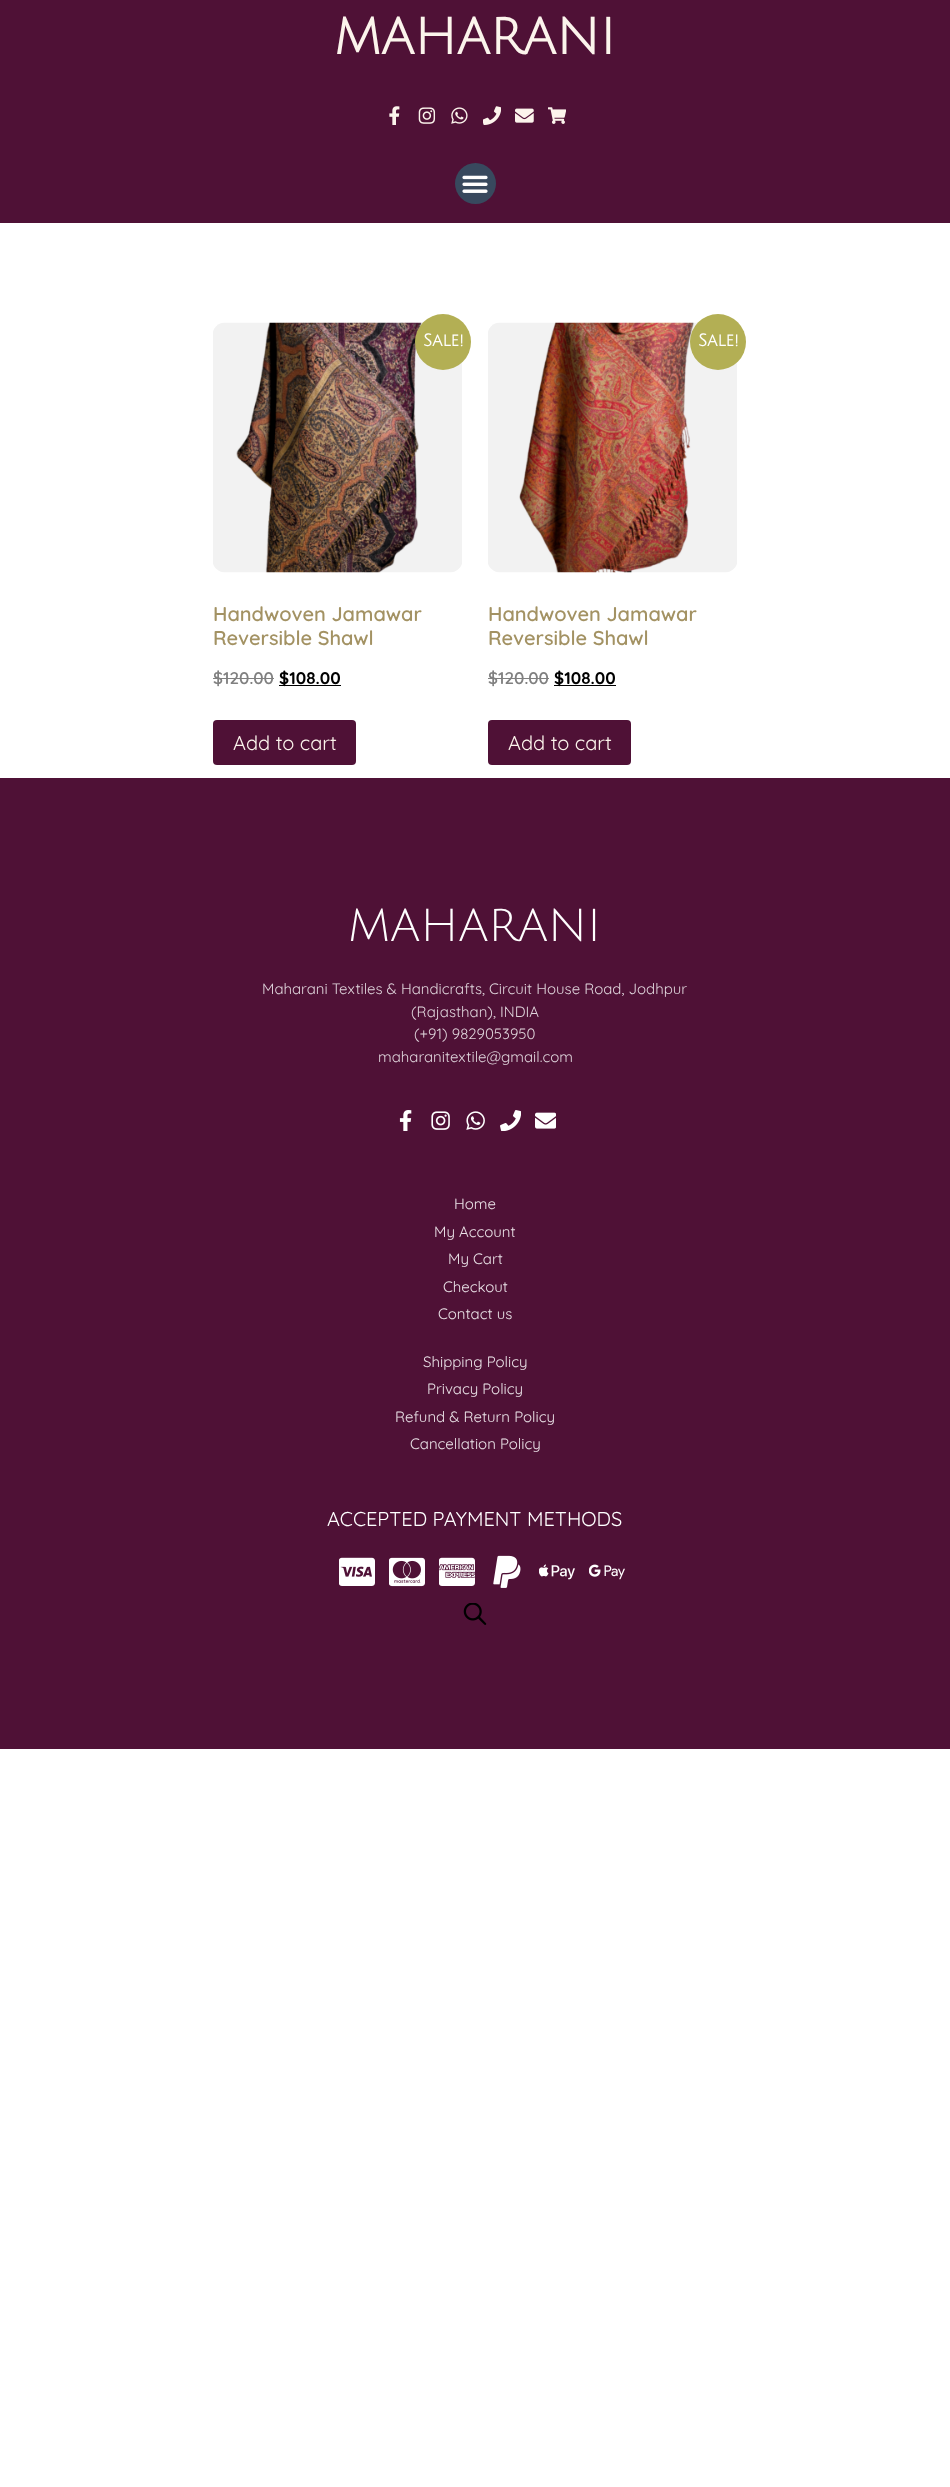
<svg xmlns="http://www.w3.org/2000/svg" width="950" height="2487">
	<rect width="100%" height="100%" fill="#FFFFFF" />
	<rect x="0" y="0" width="950" height="223" fill="#4F1136" />
	<text x="334" y="54" font-family="Julius Sans One" font-size="50" font-weight="700" fill="#FCF4EC">MAHARANI</text>
	<image x="389" y="106" width="11" height="19" href="assets/img1.png" />
	<image x="418" y="107" width="18" height="17" href="assets/img2.png" />
	<image x="451" y="107" width="17" height="17" href="assets/img3.png" />
	<image x="483" y="106" width="18" height="19" href="assets/img4.png" />
	<image x="515" y="108" width="19" height="15" href="assets/img5.png" />
	<image x="548" y="107" width="18" height="17" href="assets/img6.png" />
	<circle cx="475.5" cy="183.5" r="20.5" fill="#38495E" />
	<image x="462" y="175" width="26" height="18" href="assets/img7.png" />
	<image x="213" y="322" width="249" height="251" href="assets/img8.png" />
	<circle cx="443" cy="342" r="28" fill="#B3AF54" />
	<text x="423" y="346" font-family="Julius Sans One" font-size="17" font-weight="700" fill="#FFFFFF">Sale!</text>
	<g font-family="Quicksand" font-size="20" font-weight="600" fill="#A39263">
		<text x="213" y="621">Handwoven Jamawar</text>
		<text x="213" y="645">Reversible Shawl</text>
	</g>
	<text x="213" y="684" font-family="Quicksand" font-size="17" font-weight="600" fill="#808080">$</text>
	<rect x="213" y="678" width="10" height="1" fill="#808080" />
	<rect x="223" y="678" width="51" height="1" fill="#808080" />
	<text x="223" y="684" font-family="Quicksand" font-size="17" font-weight="600" fill="#808080">120.00</text>
	<rect x="279" y="685" width="62" height="1" fill="#000000" />
	<text x="279" y="684" font-family="Quicksand" font-size="17" font-weight="700" fill="#000000">$108.00</text>
	<rect x="213" y="720" width="143" height="45" rx="4" fill="#4F1136" />
	<text x="233" y="750" font-family="Quicksand" font-size="20" fill="#FCF4EC">Add to cart</text>
	<image x="488" y="322" width="249" height="251" href="assets/img9.png" />
	<circle cx="718" cy="342" r="28" fill="#B3AF54" />
	<text x="698" y="346" font-family="Julius Sans One" font-size="17" font-weight="700" fill="#FFFFFF">Sale!</text>
	<g font-family="Quicksand" font-size="20" font-weight="600" fill="#A39263">
		<text x="488" y="621">Handwoven Jamawar</text>
		<text x="488" y="645">Reversible Shawl</text>
	</g>
	<text x="488" y="684" font-family="Quicksand" font-size="17" font-weight="600" fill="#808080">$</text>
	<rect x="488" y="678" width="10" height="1" fill="#808080" />
	<rect x="498" y="678" width="51" height="1" fill="#808080" />
	<text x="498" y="684" font-family="Quicksand" font-size="17" font-weight="600" fill="#808080">120.00</text>
	<rect x="554" y="685" width="62" height="1" fill="#000000" />
	<text x="554" y="684" font-family="Quicksand" font-size="17" font-weight="700" fill="#000000">$108.00</text>
	<rect x="488" y="720" width="143" height="45" rx="4" fill="#4F1136" />
	<text x="508" y="750" font-family="Quicksand" font-size="20" fill="#FCF4EC">Add to cart</text>
	<rect x="0" y="778" width="950" height="971" fill="#4F1136" />
	<text x="348" y="941" font-family="Julius Sans One" font-size="45" fill="#FFFFFF">MAHARANI</text>
	<g font-family="Quicksand" font-size="15" fill="#DFD4DB">
		<text x="262" y="994">Maharani Textiles &amp; Handicrafts, Circuit House Road, Jodhpur</text>
		<text x="411" y="1017">(Rajasthan), INDIA</text>
		<text x="414" y="1039">(+91) 9829053950</text>
		<text x="378" y="1062">maharanitextile@gmail.com</text>
	</g>
	<image x="399" y="1110" width="13" height="21" href="assets/img10.png" />
	<image x="431" y="1111" width="19" height="19" href="assets/img11.png" />
	<image x="466" y="1111" width="19" height="19" href="assets/img12.png" />
	<image x="500" y="1110" width="21" height="21" href="assets/img13.png" />
	<image x="535" y="1112" width="21" height="17" href="assets/img14.png" />
	<g font-family="Quicksand" font-size="15" fill="#EAE2E7">
		<text x="454" y="1209">Home</text>
		<text x="434" y="1237">My Account</text>
		<text x="448" y="1264">My Cart</text>
		<text x="443" y="1292">Checkout</text>
		<text x="438" y="1319">Contact us</text>
		<text x="423" y="1367">Shipping Policy</text>
		<text x="427" y="1394">Privacy Policy</text>
		<text x="395" y="1422">Refund &amp; Return Policy</text>
		<text x="410" y="1449">Cancellation Policy</text>
	</g>
	<text x="327" y="1526" font-family="Quicksand" font-size="20" fill="#FFFFFF">ACCEPTED PAYMENT METHODS</text>
	<image x="339" y="1557" width="36" height="29" href="assets/img15.png" />
	<image x="389" y="1557" width="36" height="30" href="assets/img16.png" />
	<image x="439" y="1557" width="36" height="29" href="assets/img17.png" />
	<image x="493" y="1555" width="28" height="33" href="assets/img18.png" />
	<image x="539" y="1564" width="36" height="16" href="assets/img19.png" />
	<image x="589" y="1564" width="36" height="16" href="assets/img20.png" />
	<image x="463" y="1603" width="24" height="22" href="assets/img21.png" />
</svg>
